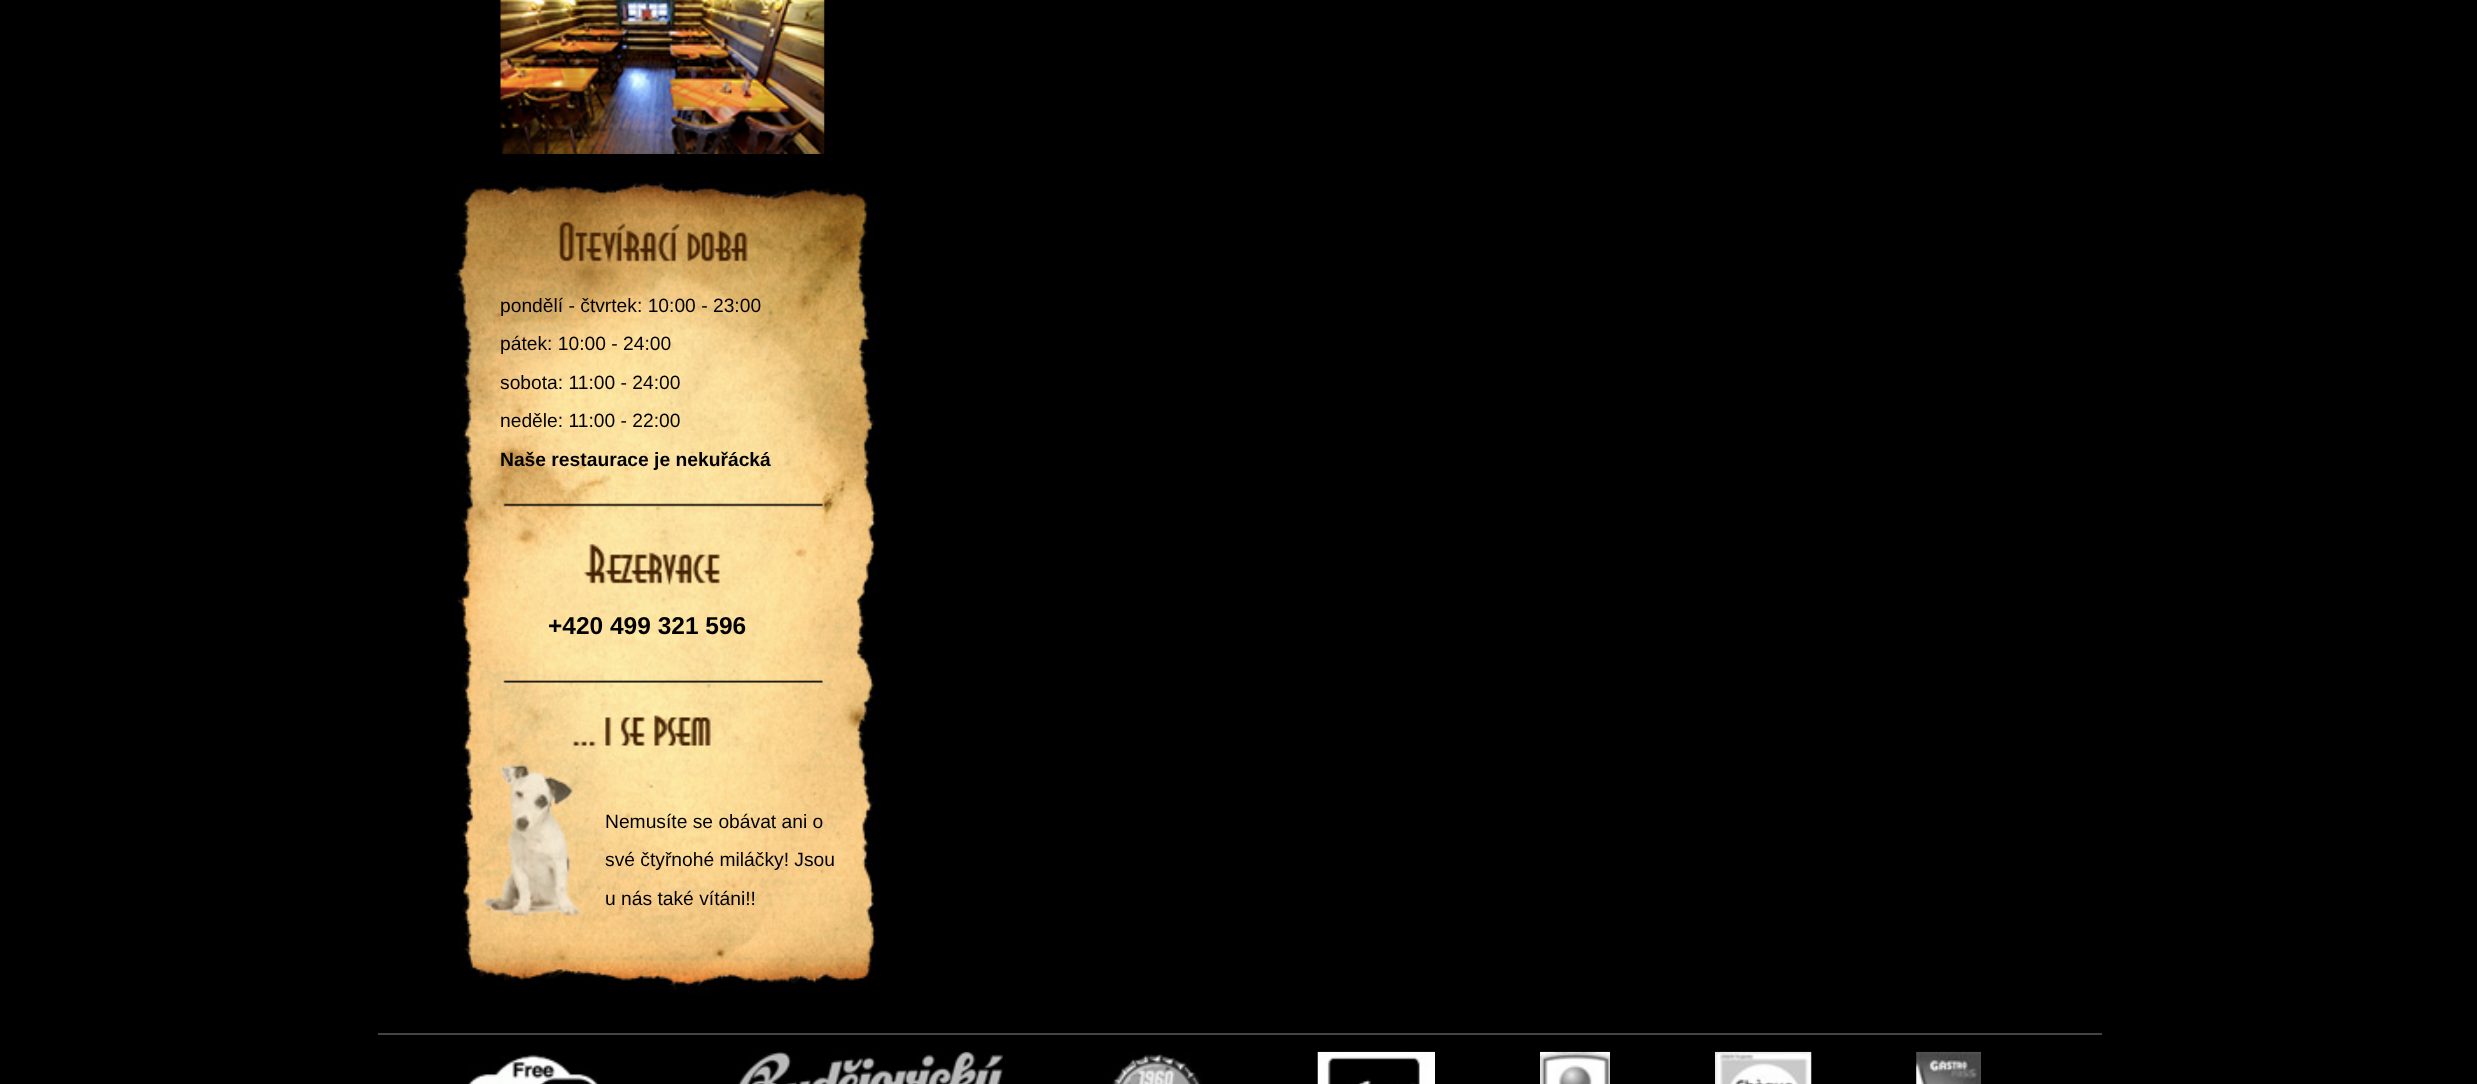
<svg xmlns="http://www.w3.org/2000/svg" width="2477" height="1084">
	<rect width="100%" height="100%" fill="#000000" />
	<image x="500" y="0" width="325" height="154" href="assets/img1.png" />
	<image x="450" y="181" width="429" height="813" href="assets/img2.png" />
	<g font-family="Liberation Sans" font-size="19.25" fill="#000000">
		<text x="500" y="312">pondělí - čtvrtek: 10:00 - 23:00</text>
		<text x="500" y="350">pátek: 10:00 - 24:00</text>
		<text x="500" y="389">sobota: 11:00 - 24:00</text>
		<text x="500" y="427">neděle: 11:00 - 22:00</text>
	</g>
	<text x="500" y="466" font-family="Liberation Sans" font-size="19.25" font-weight="700" fill="#000000">Naše restaurace je nekuřácká</text>
	<text x="548" y="634" font-family="Liberation Sans" font-size="24.5" font-weight="700" fill="#000000">+420 499 321 596</text>
	<g font-family="Liberation Sans" font-size="19.25" fill="#000000">
		<text x="605" y="828">Nemusíte se obávat ani o</text>
		<text x="605" y="866">své čtyřnohé miláčky! Jsou</text>
		<text x="605" y="905">u nás také vítáni!!</text>
	</g>
	<rect x="378" y="1033" width="1724" height="2" fill="#444444" />
	<image x="468" y="1054" width="131" height="30" href="assets/img3.png" />
	<image x="738" y="1051" width="265" height="33" href="assets/img4.png" />
	<image x="1108" y="1053" width="94" height="31" href="assets/img5.png" />
	<image x="1317" y="1051" width="118" height="33" href="assets/img6.png" />
	<image x="1540" y="1051" width="70" height="33" href="assets/img7.png" />
	<image x="1715" y="1051" width="97" height="33" href="assets/img8.png" />
	<image x="1916" y="1051" width="65" height="33" href="assets/img9.png" />
</svg>
